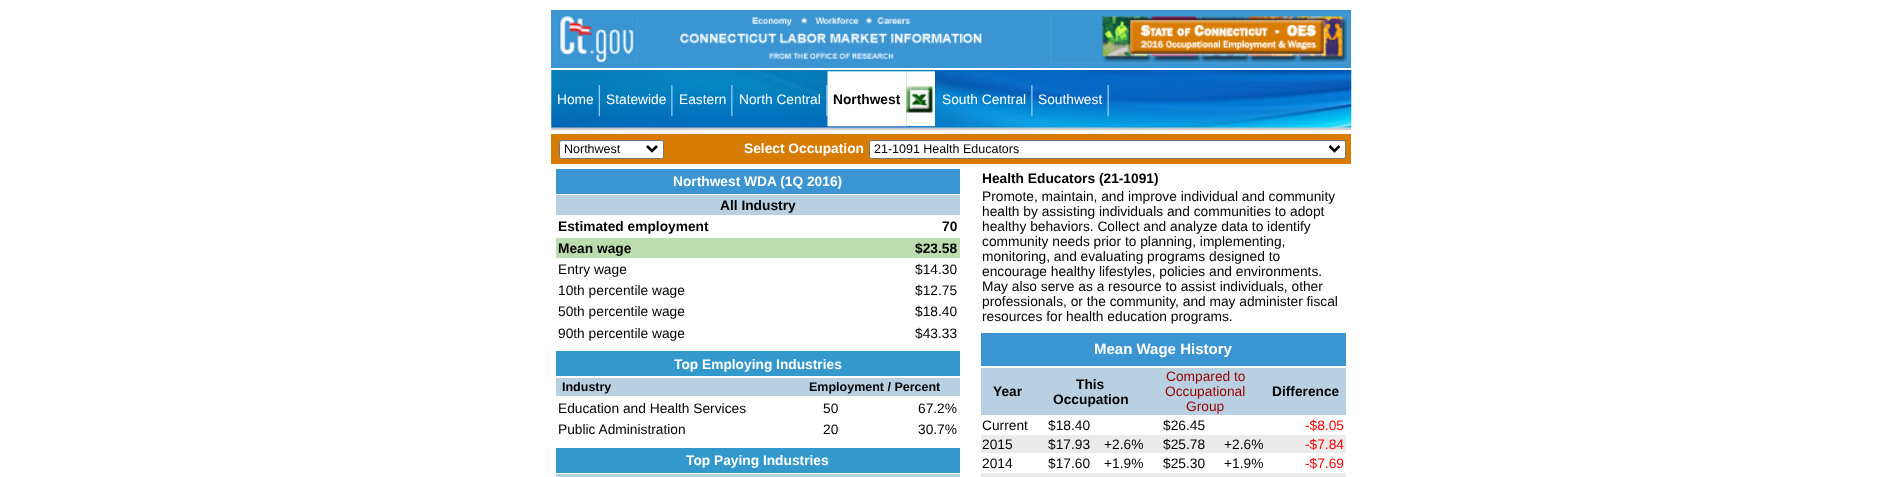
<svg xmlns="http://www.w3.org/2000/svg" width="1901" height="477">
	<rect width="100%" height="100%" fill="#FFFFFF" />
	<rect x="551" y="10" width="800" height="58" fill="#3A95D2" />
	<image x="555" y="14" width="83" height="50" href="assets/img1.png" />
	<image x="679" y="17" width="303" height="42" href="assets/img2.png" />
	<image x="1050" y="13" width="299" height="51" href="assets/img3.png" />
	<image x="551" y="70" width="801" height="60" href="assets/img4.png" />
	<image x="598" y="85" width="2" height="32" href="assets/img5.png" />
	<text x="557" y="104" font-family="Liberation Sans" font-size="13.75" fill="#FFFFFF">Home</text>
	<image x="671" y="85" width="2" height="32" href="assets/img6.png" />
	<text x="606" y="104" font-family="Liberation Sans" font-size="13.75" fill="#FFFFFF">Statewide</text>
	<image x="731" y="85" width="2" height="32" href="assets/img7.png" />
	<text x="679" y="104" font-family="Liberation Sans" font-size="13.75" fill="#FFFFFF">Eastern</text>
	<image x="826" y="85" width="2" height="32" href="assets/img8.png" />
	<text x="739" y="104" font-family="Liberation Sans" font-size="13.75" fill="#FFFFFF">North Central</text>
	<image x="827" y="70" width="80" height="60" href="assets/img9.png" />
	<text x="833" y="104" font-family="Liberation Sans" font-size="13.75" font-weight="700" fill="#000000">Northwest</text>
	<image x="906" y="70" width="29" height="57" href="assets/img10.png" />
	<image x="906" y="86" width="27" height="27" href="assets/img11.png" />
	<image x="1031" y="85" width="2" height="32" href="assets/img12.png" />
	<text x="942" y="104" font-family="Liberation Sans" font-size="13.75" fill="#FFFFFF">South Central</text>
	<image x="1107" y="85" width="2" height="32" href="assets/img13.png" />
	<text x="1038" y="104" font-family="Liberation Sans" font-size="13.75" fill="#FFFFFF">Southwest</text>
	<rect x="551" y="134" width="800" height="30" fill="#D87B02" />
	<rect x="559.5" y="140.5" width="104" height="18" rx="2" fill="#FFFFFF" stroke="#767676" />
	<path d="M647 146L652 151L657 146" fill="none" stroke="#000000" stroke-width="2.5" />
	<text x="564" y="153" font-family="Liberation Sans" font-size="12.5" fill="#000000">Northwest</text>
	<text x="744" y="153" font-family="Liberation Sans" font-size="13.75" font-weight="700" fill="#FFFFFF">Select Occupation</text>
	<rect x="869.5" y="140.5" width="476" height="18" rx="2" fill="#FFFFFF" stroke="#767676" />
	<path d="M1329.5 146L1334.5 151L1339.5 146" fill="none" stroke="#000000" stroke-width="2.5" />
	<text x="874" y="153" font-family="Liberation Sans" font-size="12.5" fill="#000000">21-1091 Health Educators</text>
	<rect x="556" y="169" width="404" height="25" fill="#3A95D2" />
	<text x="673" y="186" font-family="Liberation Sans" font-size="13.75" font-weight="700" fill="#FFFFFF">Northwest WDA (1Q 2016)</text>
	<rect x="556" y="195" width="404" height="20" fill="#B8D0E1" />
	<g font-family="Liberation Sans" font-size="13.75" font-weight="700" fill="#000000">
		<text x="720" y="210">All Industry</text>
		<text x="558" y="231">Estimated employment</text>
		<text x="942" y="231">70</text>
	</g>
	<rect x="556" y="238" width="404" height="20" fill="#BCDDAD" />
	<g font-family="Liberation Sans" font-size="13.75" font-weight="700" fill="#000000">
		<text x="558" y="253">Mean wage</text>
		<text x="915" y="253">$23.58</text>
	</g>
	<g font-family="Liberation Sans" font-size="13.75" fill="#000000">
		<text x="558" y="274">Entry wage</text>
		<text x="915" y="274">$14.30</text>
		<text x="558" y="295">10th percentile wage</text>
		<text x="915" y="295">$12.75</text>
		<text x="558" y="316">50th percentile wage</text>
		<text x="915" y="316">$18.40</text>
		<text x="558" y="338">90th percentile wage</text>
		<text x="915" y="338">$43.33</text>
	</g>
	<rect x="556" y="351" width="404" height="25" fill="#3399CC" />
	<text x="674" y="369" font-family="Liberation Sans" font-size="13.75" font-weight="700" fill="#FFFFFF">Top Employing Industries</text>
	<rect x="556" y="378" width="404" height="18" fill="#B8D0E1" />
	<g font-family="Liberation Sans" font-size="12.5" font-weight="700" fill="#000000">
		<text x="562" y="391">Industry</text>
		<text x="809" y="391">Employment / Percent</text>
	</g>
	<g font-family="Liberation Sans" font-size="13.75" fill="#000000">
		<text x="558" y="413">Education and Health Services</text>
		<text x="823" y="413">50</text>
		<text x="918" y="413">67.2%</text>
		<text x="558" y="434">Public Administration</text>
		<text x="823" y="434">20</text>
		<text x="918" y="434">30.7%</text>
	</g>
	<rect x="556" y="448" width="404" height="25" fill="#3399CC" />
	<text x="686" y="465" font-family="Liberation Sans" font-size="13.75" font-weight="700" fill="#FFFFFF">Top Paying Industries</text>
	<rect x="556" y="474" width="404" height="3" fill="#B8D0E1" />
	<text x="982" y="183" font-family="Liberation Sans" font-size="13.75" font-weight="700" fill="#000000">Health Educators (21-1091)</text>
	<g font-family="Liberation Sans" font-size="13.75" fill="#000000">
		<text x="982" y="201">Promote, maintain, and improve individual and community</text>
		<text x="982" y="216">health by assisting individuals and communities to adopt</text>
		<text x="982" y="231">healthy behaviors. Collect and analyze data to identify</text>
		<text x="982" y="246">community needs prior to planning, implementing,</text>
		<text x="982" y="261">monitoring, and evaluating programs designed to</text>
		<text x="982" y="276">encourage healthy lifestyles, policies and environments.</text>
		<text x="982" y="291">May also serve as a resource to assist individuals, other</text>
		<text x="982" y="306">professionals, or the community, and may administer fiscal</text>
		<text x="982" y="321">resources for health education programs.</text>
	</g>
	<rect x="981" y="333" width="365" height="33" fill="#3A95D2" />
	<text x="1094" y="354" font-family="Liberation Sans" font-size="15" font-weight="700" fill="#FFFFFF">Mean Wage History</text>
	<rect x="981" y="368" width="365" height="47" fill="#B8D0E1" />
	<g font-family="Liberation Sans" font-size="13.75" font-weight="700" fill="#000000">
		<text x="993" y="396">Year</text>
		<text x="1076" y="389">This</text>
		<text x="1053" y="404">Occupation</text>
	</g>
	<g font-family="Liberation Sans" font-size="13.75" fill="#990000">
		<text x="1166" y="381">Compared to</text>
		<text x="1165" y="396">Occupational</text>
		<text x="1186" y="411">Group</text>
	</g>
	<text x="1272" y="396" font-family="Liberation Sans" font-size="13.75" font-weight="700" fill="#000000">Difference</text>
	<g font-family="Liberation Sans" font-size="13.75" fill="#000000">
		<text x="982" y="430">Current</text>
		<text x="1048" y="430">$18.40</text>
		<text x="1163" y="430">$26.45</text>
	</g>
	<text x="1305" y="430" font-family="Liberation Sans" font-size="13.75" fill="#FF0000">-$8.05</text>
	<rect x="981" y="435" width="365" height="18" fill="#EBEBEB" />
	<g font-family="Liberation Sans" font-size="13.75" fill="#000000">
		<text x="982" y="449">2015</text>
		<text x="1048" y="449">$17.93</text>
		<text x="1104" y="449">+2.6%</text>
		<text x="1163" y="449">$25.78</text>
		<text x="1224" y="449">+2.6%</text>
	</g>
	<text x="1305" y="449" font-family="Liberation Sans" font-size="13.75" fill="#FF0000">-$7.84</text>
	<g font-family="Liberation Sans" font-size="13.75" fill="#000000">
		<text x="982" y="468">2014</text>
		<text x="1048" y="468">$17.60</text>
		<text x="1104" y="468">+1.9%</text>
		<text x="1163" y="468">$25.30</text>
		<text x="1224" y="468">+1.9%</text>
	</g>
	<text x="1305" y="468" font-family="Liberation Sans" font-size="13.75" fill="#FF0000">-$7.69</text>
	<rect x="981" y="473" width="365" height="4" fill="#EBEBEB" />
</svg>
